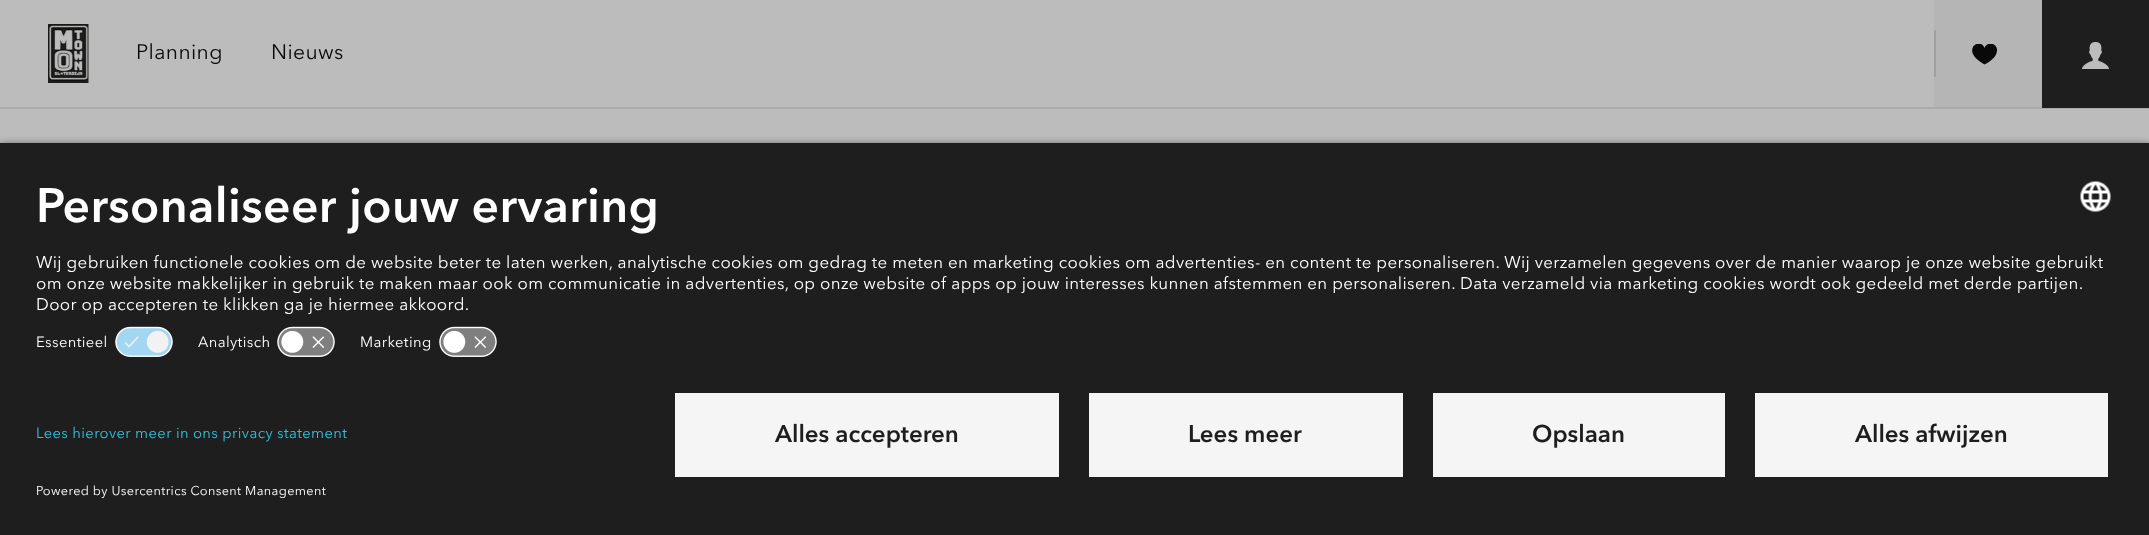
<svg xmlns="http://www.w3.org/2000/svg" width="2149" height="535">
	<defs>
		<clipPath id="clip1"><rect x="1970" y="44" width="30" height="21" /></clipPath>
	</defs>
	<rect width="100%" height="100%" fill="#BCBCBC" />
	<rect x="0" y="107" width="2149" height="2" fill="#AAAAAA" />
	<image x="48" y="24" width="41" height="59" href="assets/img1.png" />
	<g font-family="Avenir Next" font-size="21" letter-spacing="0.38" fill="#090909">
		<text x="136" y="59">Planning</text>
		<text x="271" y="59">Nieuws</text>
	</g>
	<rect x="1934" y="0" width="108" height="107" fill="#B5B5B5" />
	<rect x="1934" y="30" width="2" height="47" fill="#A0A0A0" />
	<g clip-path="url(#clip1)">
		<path d="M1984.5 64.5C1959 50.5 1980 36 1984.5 48C1986.5 42 1995.5 42 1997 49C1997.5 55 1993 60 1984.5 64.5Z" fill="#090909" />
	</g>
	<rect x="2042" y="0" width="107" height="108" fill="#1E1E1E" />
	<image x="2082" y="42" width="27" height="27" href="assets/img2.png" />
	<rect x="0" y="146" width="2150" height="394" fill="#000000" fill-opacity="0.8" filter="blur(5px)" />
	<rect x="0" y="143" width="2149" height="392" fill="#1E1E1E" />
	<text x="36" y="222" font-family="Avenir Next" font-size="48" font-weight="700" letter-spacing="0.38" fill="#FFFFFF">Personaliseer jouw ervaring</text>
	<image x="2080" y="181" width="31" height="31" href="assets/img3.png" />
	<g font-family="Avenir Next" font-size="16.88" letter-spacing="0.38" fill="#FFFFFF">
		<text x="36" y="268">Wij gebruiken functionele cookies om de website beter te laten werken, analytische cookies om gedrag te meten en marketing cookies om advertenties- en content te personaliseren. Wij verzamelen gegevens over de manier waarop je onze website gebruikt</text>
		<text x="36" y="289">om onze website makkelijker in gebruik te maken maar ook om communicatie in advertenties, op onze website of apps op jouw interesses kunnen afstemmen en personaliseren. Data verzameld via marketing cookies wordt ook gedeeld met derde partijen.</text>
		<text x="36" y="310">Door op accepteren te klikken ga je hiermee akkoord.</text>
	</g>
	<text x="36" y="347" font-family="Avenir Next" font-size="14.75" letter-spacing="0.38" fill="#FFFFFF">Essentieel</text>
	<image x="115" y="326" width="58" height="31" href="assets/img4.png" />
	<text x="198" y="347" font-family="Avenir Next" font-size="14.75" letter-spacing="0.38" fill="#FFFFFF">Analytisch</text>
	<image x="277" y="326" width="58" height="31" href="assets/img5.png" />
	<text x="360" y="347" font-family="Avenir Next" font-size="14.75" letter-spacing="0.38" fill="#FFFFFF">Marketing</text>
	<image x="439" y="326" width="58" height="31" href="assets/img5.png" />
	<text x="36" y="438" font-family="Avenir Next" font-size="14.75" letter-spacing="0.38" fill="#32C1DE">Lees hierover meer in ons privacy statement</text>
	<text x="36" y="495" font-family="Avenir Next" font-size="12.7" letter-spacing="0.38" fill="#FFFFFF">Powered by Usercentrics Consent Management</text>
	<rect x="675" y="393" width="384" height="84" fill="#F5F5F5" />
	<text x="775" y="442" font-family="Avenir Next" font-size="24" font-weight="700" fill="#1E1E1E">Alles accepteren</text>
	<rect x="1089" y="393" width="314" height="84" fill="#F5F5F5" />
	<text x="1188" y="442" font-family="Avenir Next" font-size="24" font-weight="700" fill="#1E1E1E">Lees meer</text>
	<rect x="1433" y="393" width="292" height="84" fill="#F5F5F5" />
	<text x="1532" y="442" font-family="Avenir Next" font-size="24" font-weight="700" fill="#1E1E1E">Opslaan</text>
	<rect x="1755" y="393" width="353" height="84" fill="#F5F5F5" />
	<text x="1855" y="442" font-family="Avenir Next" font-size="24" font-weight="700" fill="#1E1E1E">Alles afwijzen</text>
</svg>
